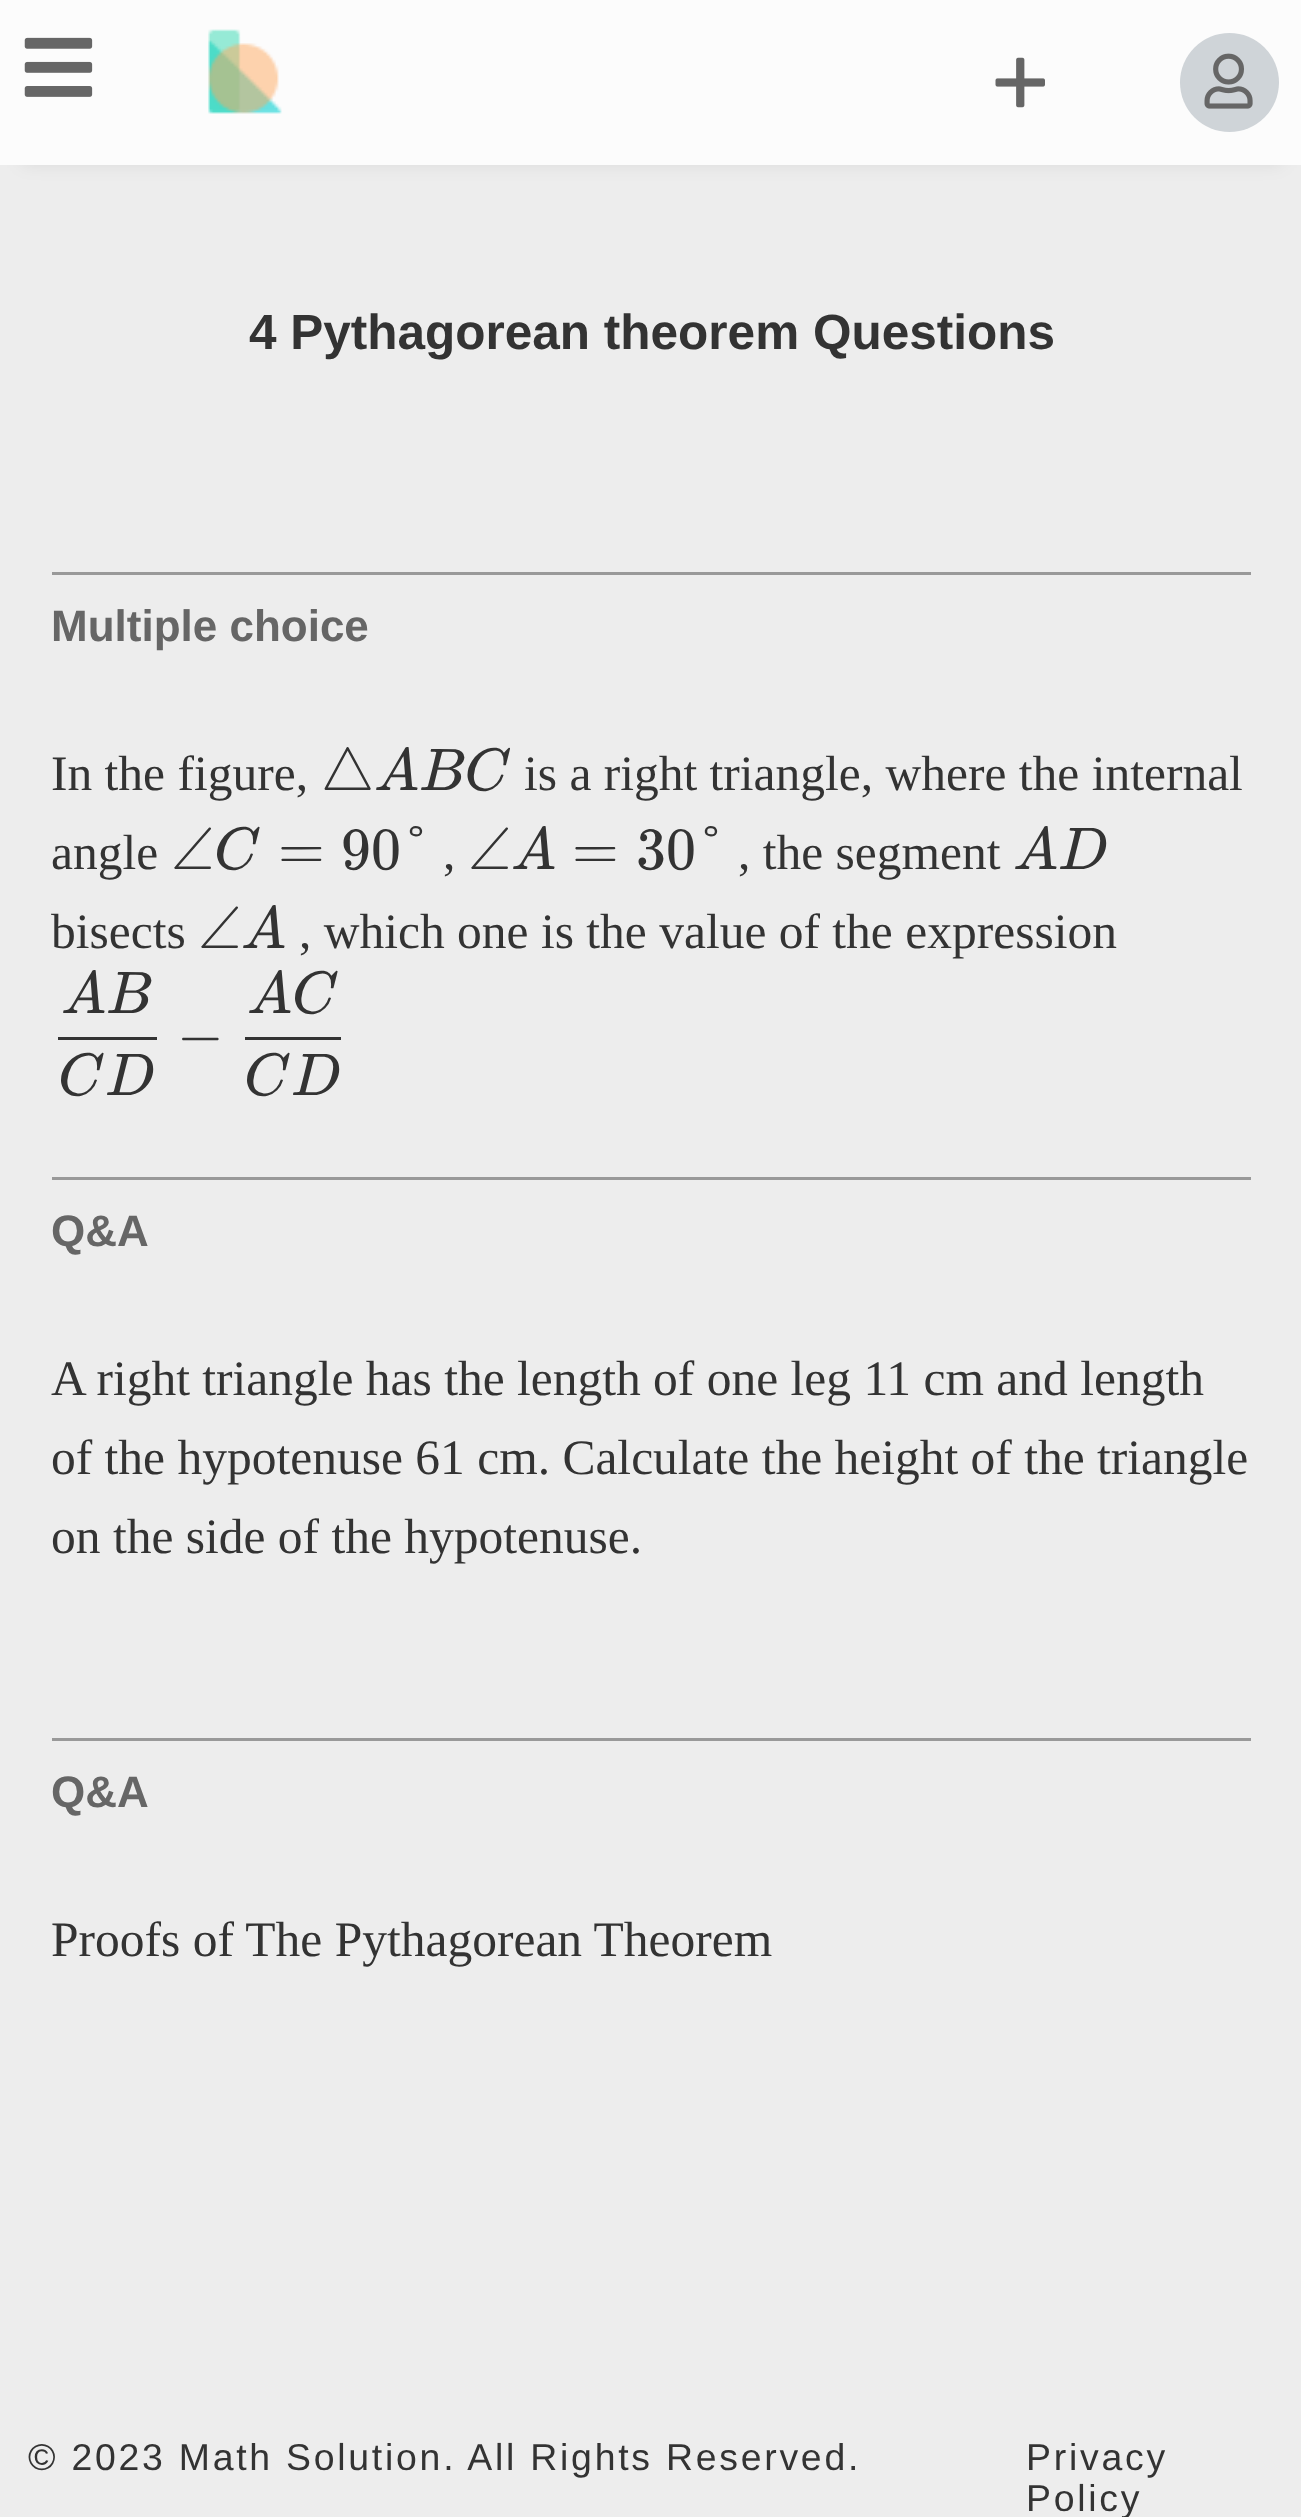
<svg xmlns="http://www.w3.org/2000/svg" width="1301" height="2517">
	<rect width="100%" height="100%" fill="#EDEDED" />
	<rect x="22" y="41" width="1260" height="121" fill="#000000" fill-opacity="0.1" filter="blur(9.5px)" />
	<rect x="0" y="0" width="1301" height="165" fill="#FCFCFC" />
	<image x="24" y="37" width="69" height="60" href="assets/img1.png" />
	<image x="208" y="29" width="74" height="85" href="assets/img2.png" />
	<image x="995" y="57" width="50" height="51" href="assets/img3.png" />
	<circle cx="1229.5" cy="82.5" r="49.5" fill="#CFD4D8" />
	<image x="1204" y="53" width="49" height="56" href="assets/img4.png" />
	<text x="249" y="349" font-family="Liberation Sans" font-size="49.5" font-weight="700" fill="#333333">4 Pythagorean theorem Questions</text>
	<rect x="52" y="572" width="1199" height="3" fill="#999999" />
	<text x="51" y="641" font-family="Liberation Sans" font-size="44" font-weight="700" fill="#666666">Multiple choice</text>
	<text x="51" y="790" font-family="Liberation Serif" font-size="49.5" fill="#333333">In the figure,</text>
	<text x="321" y="790" font-family="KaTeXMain" font-size="60" fill="#333333">△</text>
	<text x="374" y="790" font-family="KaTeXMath" font-size="60" font-style="italic" fill="#333333">ABC</text>
	<g font-family="Liberation Serif" font-size="49.5" fill="#333333">
		<text x="524" y="790">is a right triangle, where the internal</text>
		<text x="51" y="869">angle</text>
	</g>
	<text x="171" y="869" font-family="KaTeXMain" font-size="60" fill="#333333">∠</text>
	<text x="214" y="869" font-family="KaTeXMath" font-size="60" font-style="italic" fill="#333333">C</text>
	<g font-family="KaTeXMain" font-size="60" fill="#333333">
		<text x="278" y="869">=</text>
		<text x="341" y="869">90°</text>
	</g>
	<text x="443" y="869" font-family="Liberation Serif" font-size="49.5" fill="#333333">,</text>
	<text x="468" y="869" font-family="KaTeXMain" font-size="60" fill="#333333">∠</text>
	<text x="511" y="869" font-family="KaTeXMath" font-size="60" font-style="italic" fill="#333333">A</text>
	<g font-family="KaTeXMain" font-size="60" fill="#333333">
		<text x="572" y="869">=</text>
		<text x="636" y="869">30°</text>
	</g>
	<text x="738" y="869" font-family="Liberation Serif" font-size="49.5" fill="#333333">, the segment</text>
	<text x="1013" y="869" font-family="KaTeXMath" font-size="60" font-style="italic" fill="#333333">AD</text>
	<text x="51" y="948" font-family="Liberation Serif" font-size="49.5" fill="#333333">bisects</text>
	<text x="198" y="948" font-family="KaTeXMain" font-size="60" fill="#333333">∠</text>
	<text x="241" y="948" font-family="KaTeXMath" font-size="60" font-style="italic" fill="#333333">A</text>
	<text x="299" y="948" font-family="Liberation Serif" font-size="49.5" fill="#333333">, which one is the value of the expression</text>
	<text x="61" y="1013" font-family="KaTeXMath" font-size="60" font-style="italic" fill="#333333">AB</text>
	<rect x="58" y="1037" width="99" height="3" fill="#333333" />
	<g font-family="KaTeXMath" font-size="60" font-style="italic" fill="#333333">
		<text x="58" y="1095">C</text>
		<text x="105" y="1095">D</text>
	</g>
	<text x="177" y="1054" font-family="KaTeXMain" font-size="60" fill="#333333">−</text>
	<text x="247" y="1013" font-family="KaTeXMath" font-size="60" font-style="italic" fill="#333333">AC</text>
	<rect x="245" y="1037" width="96" height="3" fill="#333333" />
	<g font-family="KaTeXMath" font-size="60" font-style="italic" fill="#333333">
		<text x="244" y="1095">C</text>
		<text x="291" y="1095">D</text>
	</g>
	<rect x="52" y="1177" width="1199" height="3" fill="#999999" />
	<text x="51" y="1246" font-family="Liberation Sans" font-size="44" font-weight="700" fill="#666666">Q&amp;A</text>
	<g font-family="Liberation Serif" font-size="49.5" fill="#333333">
		<text x="51" y="1395">A right triangle has the length of one leg 11 cm and length</text>
		<text x="51" y="1474">of the hypotenuse 61 cm. Calculate the height of the triangle</text>
		<text x="51" y="1553">on the side of the hypotenuse.</text>
	</g>
	<rect x="52" y="1738" width="1199" height="3" fill="#999999" />
	<text x="51" y="1807" font-family="Liberation Sans" font-size="44" font-weight="700" fill="#666666">Q&amp;A</text>
	<text x="51" y="1956" font-family="Liberation Serif" font-size="49.5" fill="#333333">Proofs of The Pythagorean Theorem</text>
	<g font-family="Liberation Sans" font-size="37.4" letter-spacing="2.75" fill="#333333">
		<text x="28" y="2470">© 2023 Math Solution. All Rights Reserved.</text>
		<text x="1026" y="2470">Privacy</text>
		<text x="1026" y="2511">Policy</text>
	</g>
</svg>
